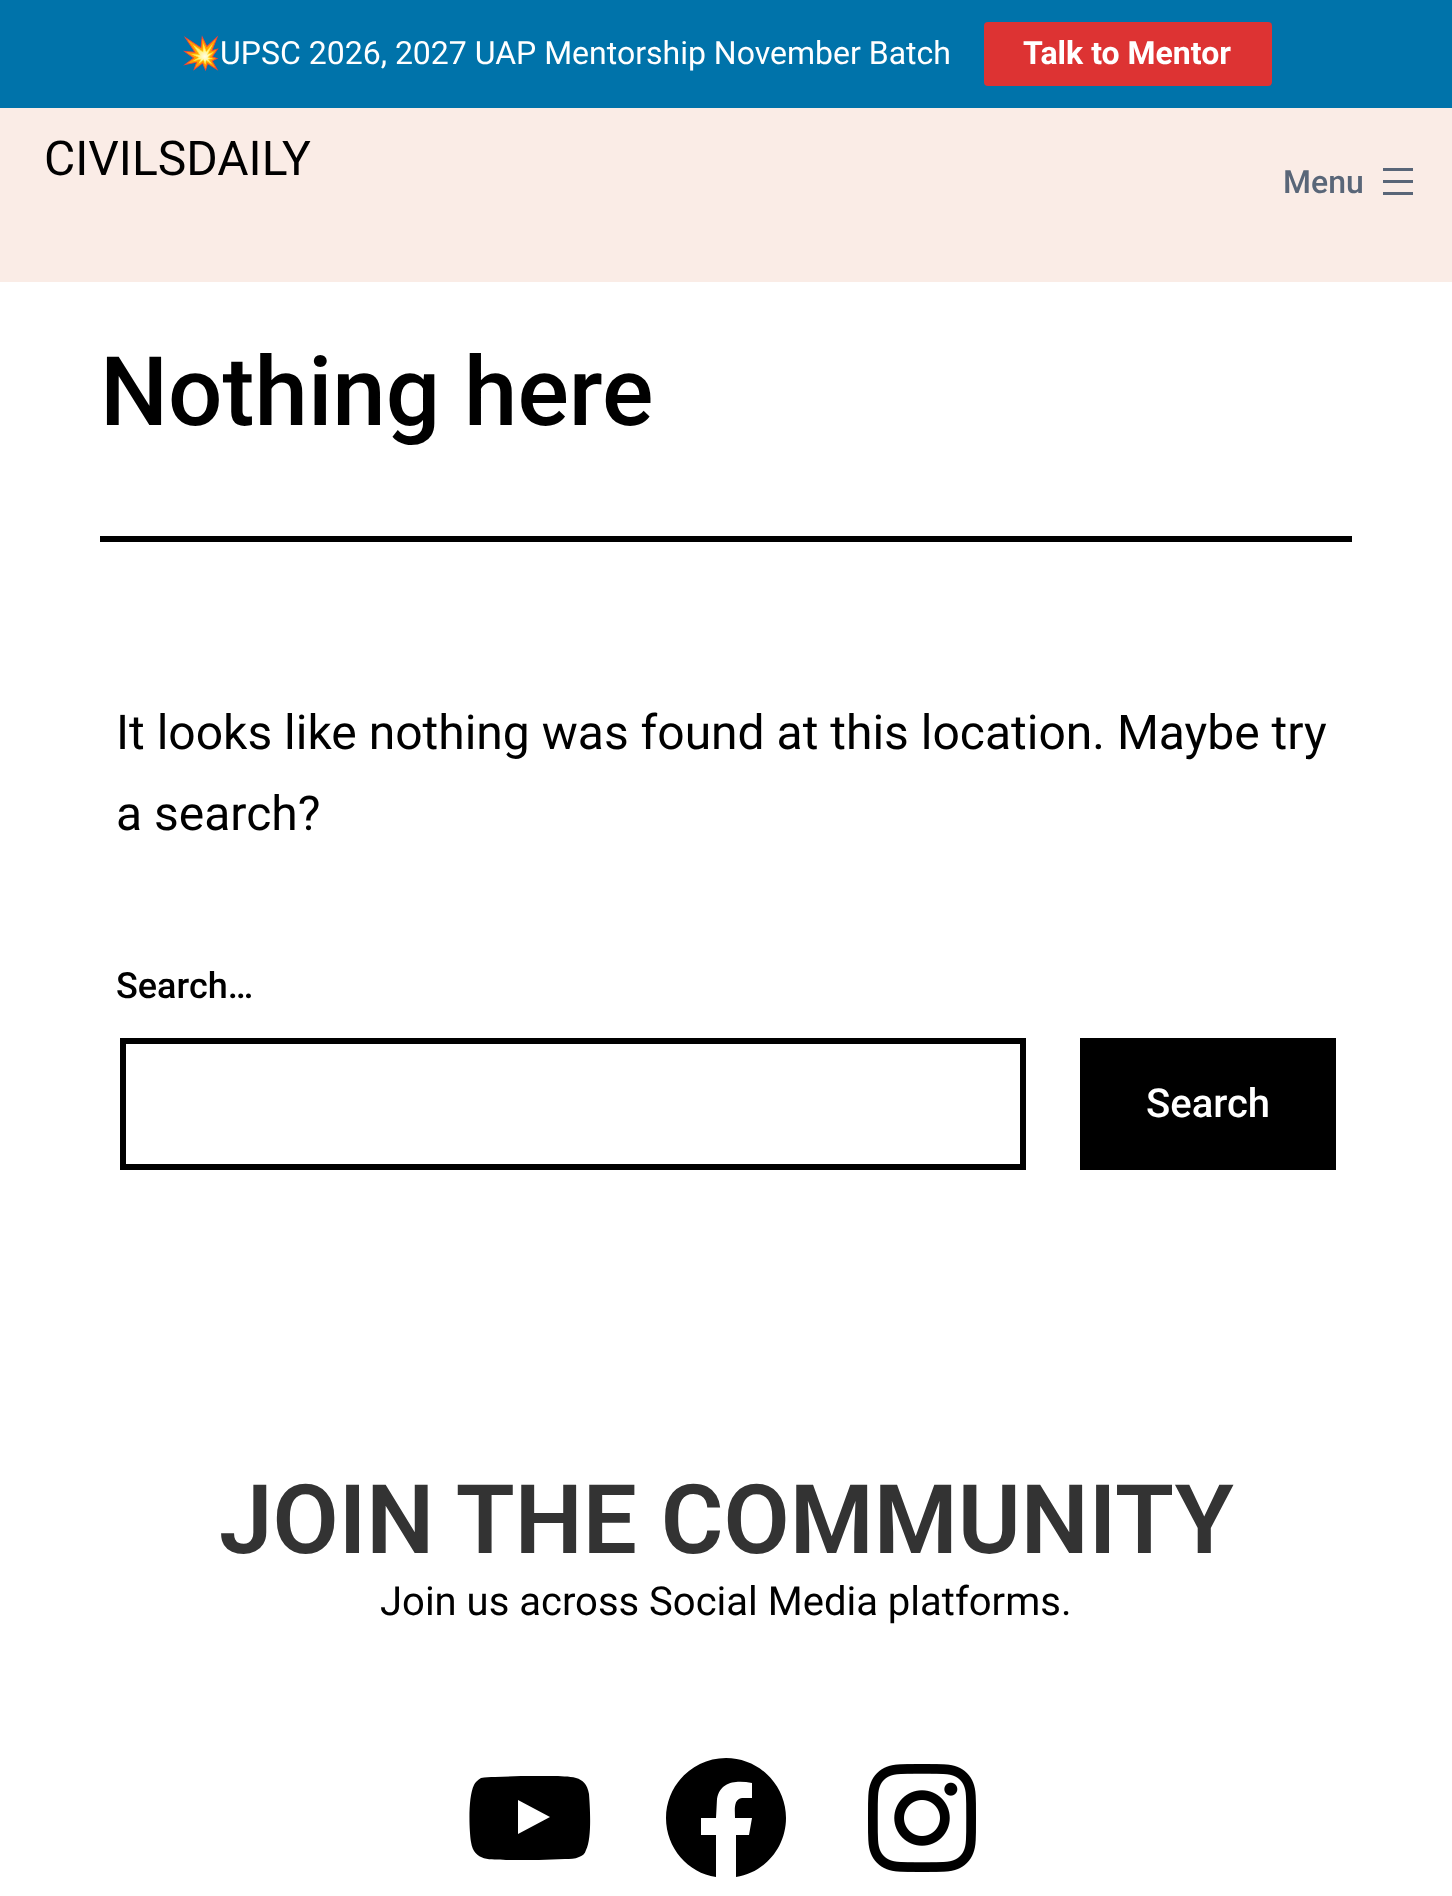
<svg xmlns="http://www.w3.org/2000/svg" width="1452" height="1896">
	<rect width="100%" height="100%" fill="#FFFFFF" />
	<rect x="0" y="0" width="1452" height="108" fill="#0073AA" />
	<text x="181" y="64" font-family="Noto Color Emoji" font-size="32" fill="#FFFFFF">💥</text>
	<text x="220" y="64" font-family="Roboto" font-size="32" fill="#FFFFFF">UPSC 2026, 2027 UAP Mentorship November Batch</text>
	<rect x="984" y="22" width="288" height="64" rx="4" fill="#DD3333" />
	<text x="1023" y="64" font-family="Roboto" font-size="32" font-weight="700" fill="#FFFFFF">Talk to Mentor</text>
	<rect x="0" y="108" width="1452" height="174" fill="#FAECE6" />
	<text x="44" y="175" font-family="Roboto" font-size="48" fill="#000000">CIVILSDAILY</text>
	<text x="1283" y="193" font-family="Roboto" font-size="32" font-weight="500" fill="#596678">Menu</text>
	<image x="1383" y="168" width="30" height="27" href="assets/img1.png" />
	<rect x="100" y="536" width="1252" height="6" fill="#000000" />
	<text x="100" y="425" font-family="Roboto" font-size="96" font-weight="500" fill="#000000">Nothing here</text>
	<g font-family="Roboto" font-size="48" fill="#000000">
		<text x="116" y="749">It looks like nothing was found at this location. Maybe try</text>
		<text x="116" y="830">a search?</text>
	</g>
	<text x="116" y="998" font-family="Roboto" font-size="36" font-weight="500" fill="#000000">Search…</text>
	<rect x="123" y="1041" width="900" height="126" fill="none" stroke="#000000" stroke-width="6" />
	<rect x="1080" y="1038" width="256" height="132" fill="#000000" />
	<text x="1146" y="1117" font-family="Roboto" font-size="40" font-weight="500" fill="#FFFFFF">Search</text>
	<text x="219" y="1553" font-family="Roboto" font-size="96" font-weight="600" fill="#333333">JOIN THE COMMUNITY</text>
	<text x="380" y="1615" font-family="Roboto" font-size="40" fill="#000000">Join us across Social Media platforms.</text>
	<path d="M589 1794C586 1776 573 1777 558 1776H521L495 1777C490 1777 485 1777 481 1778C478 1780 475 1782 474 1785C468 1797 469 1829 471 1842C474 1862 491 1859 506 1860H539L565 1859C570 1859 575 1859 579 1857C582 1856 585 1854 586 1850C592 1839 590 1807 589 1794ZM518 1834V1800L550 1817Z" fill="#000000" />
	<path d="M726 1758C693 1758 666 1785 666 1818C666 1848 688 1873 716 1877V1835H701V1818H716L717 1799C720 1781 737 1780 752 1783V1798H742C733 1799 735 1811 735 1818H752L749 1835H736V1877C764 1873 786 1848 786 1818C786 1785 759 1758 726 1758Z" fill="#000000" />
	<image x="868" y="1764" width="108" height="108" href="assets/img2.png" />
</svg>
